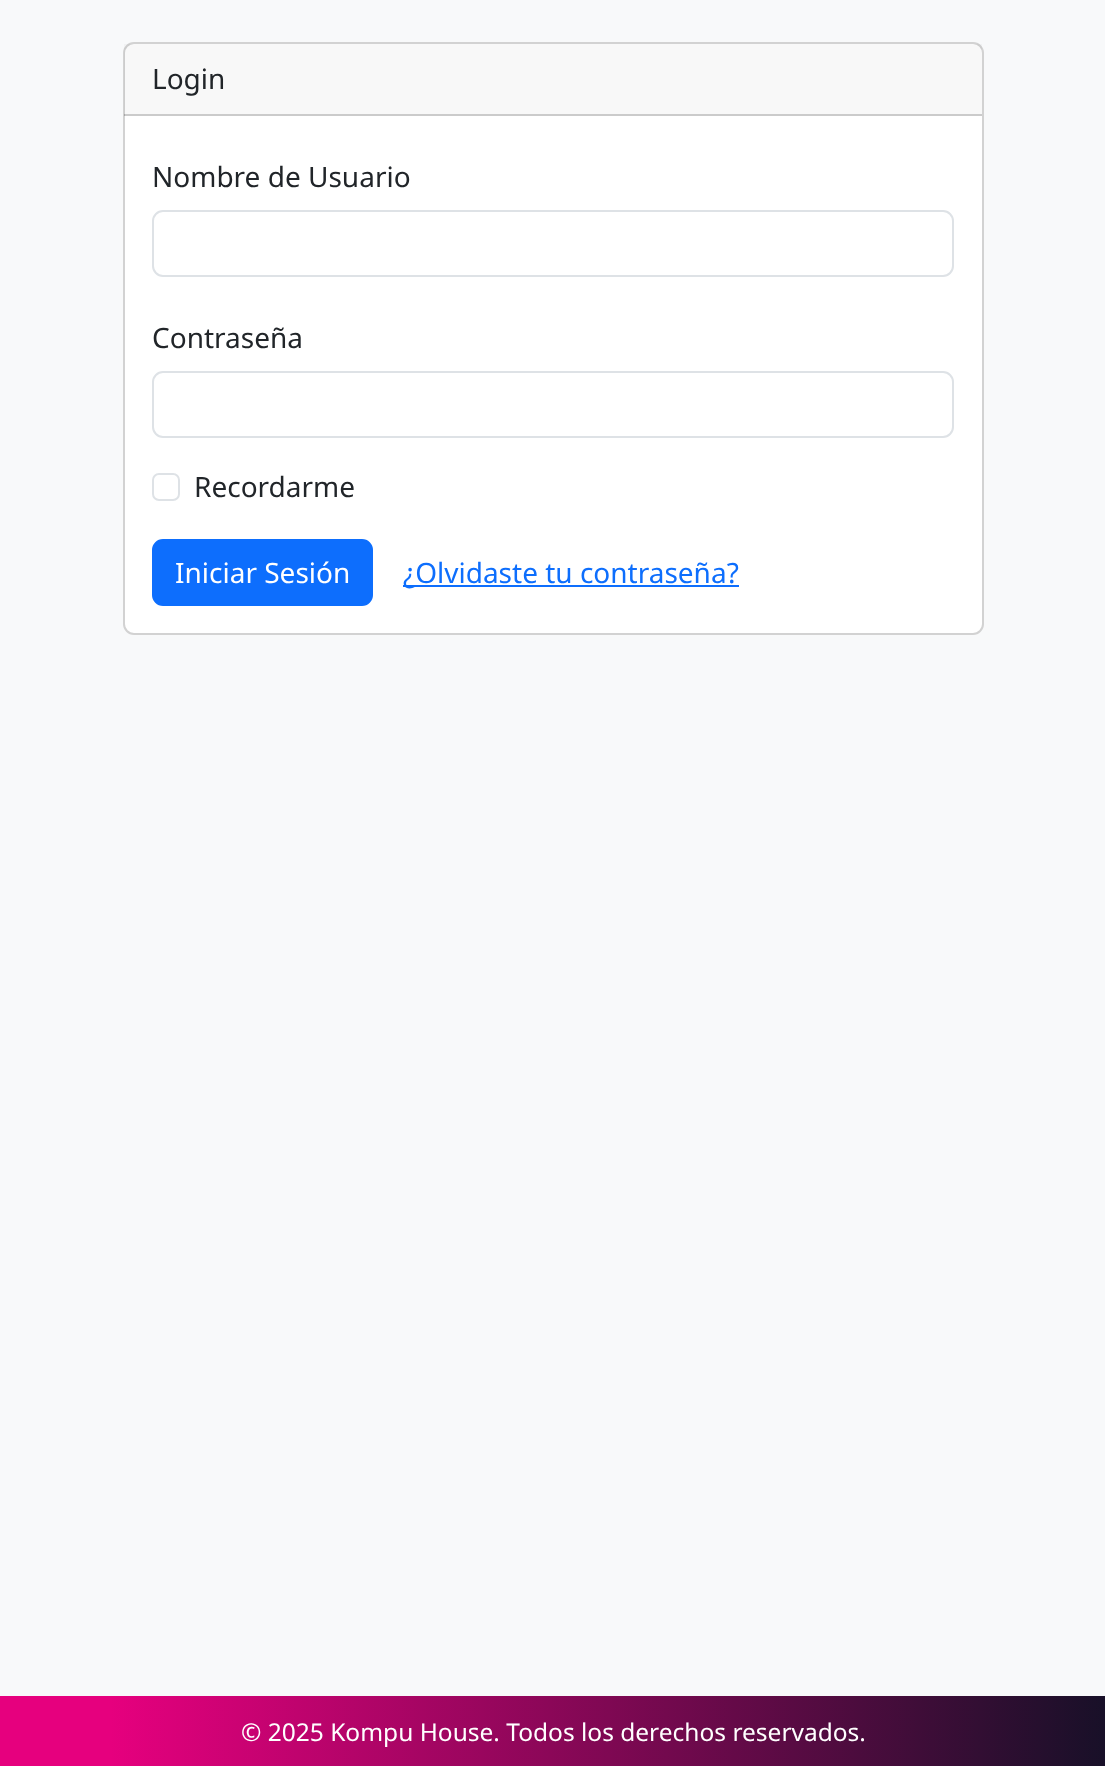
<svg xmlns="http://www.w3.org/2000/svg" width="1105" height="1766">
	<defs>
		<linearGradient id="g1" gradientUnits="userSpaceOnUse" x1="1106" y1="1732" x2="0" y2="1732"><stop offset="0" stop-color="#181028" /><stop offset="0.9" stop-color="#E6007E" /></linearGradient>
	</defs>
	<rect width="100%" height="100%" fill="#F8F9FA" />
	<rect x="124" y="43" width="859" height="591" rx="10" fill="#FFFFFF" stroke="#D2D2D2" stroke-width="2" />
	<rect x="124" y="44" width="858" height="72" fill="#212529" fill-opacity="0.03" />
	<rect x="124" y="114" width="858" height="2" fill="#000000" fill-opacity="0.18" />
	<g font-family="Noto Sans" font-size="28" fill="#212529">
		<text x="152" y="89">Login</text>
		<text x="152" y="187">Nombre de Usuario</text>
	</g>
	<rect x="153" y="211" width="800" height="65" rx="10" fill="none" stroke="#DEE2E6" stroke-width="2" />
	<text x="152" y="348" font-family="Noto Sans" font-size="28" fill="#212529">Contraseña</text>
	<rect x="153" y="372" width="800" height="65" rx="10" fill="none" stroke="#DEE2E6" stroke-width="2" />
	<rect x="153" y="474" width="26" height="26" rx="6" fill="none" stroke="#DEE2E6" stroke-width="2" />
	<text x="194" y="497" font-family="Noto Sans" font-size="28" fill="#212529">Recordarme</text>
	<rect x="153" y="540" width="219" height="65" rx="10" fill="#0D6EFD" stroke="#0D6EFD" stroke-width="2" />
	<text x="175" y="583" font-family="Noto Sans" font-size="28" fill="#FFFFFF">Iniciar Sesión</text>
	<rect x="403" y="585" width="336" height="2" fill="#0D6EFD" />
	<text x="403" y="583" font-family="Noto Sans" font-size="28" fill="#0D6EFD">¿Olvidaste tu contraseña?</text>
	<rect x="0" y="1696" width="1105" height="70" fill="url(#g1)" />
	<text x="241" y="1741" font-family="Noto Sans" font-size="24.5" fill="#FFFFFF">© 2025 Kompu House. Todos los derechos reservados.</text>
</svg>
